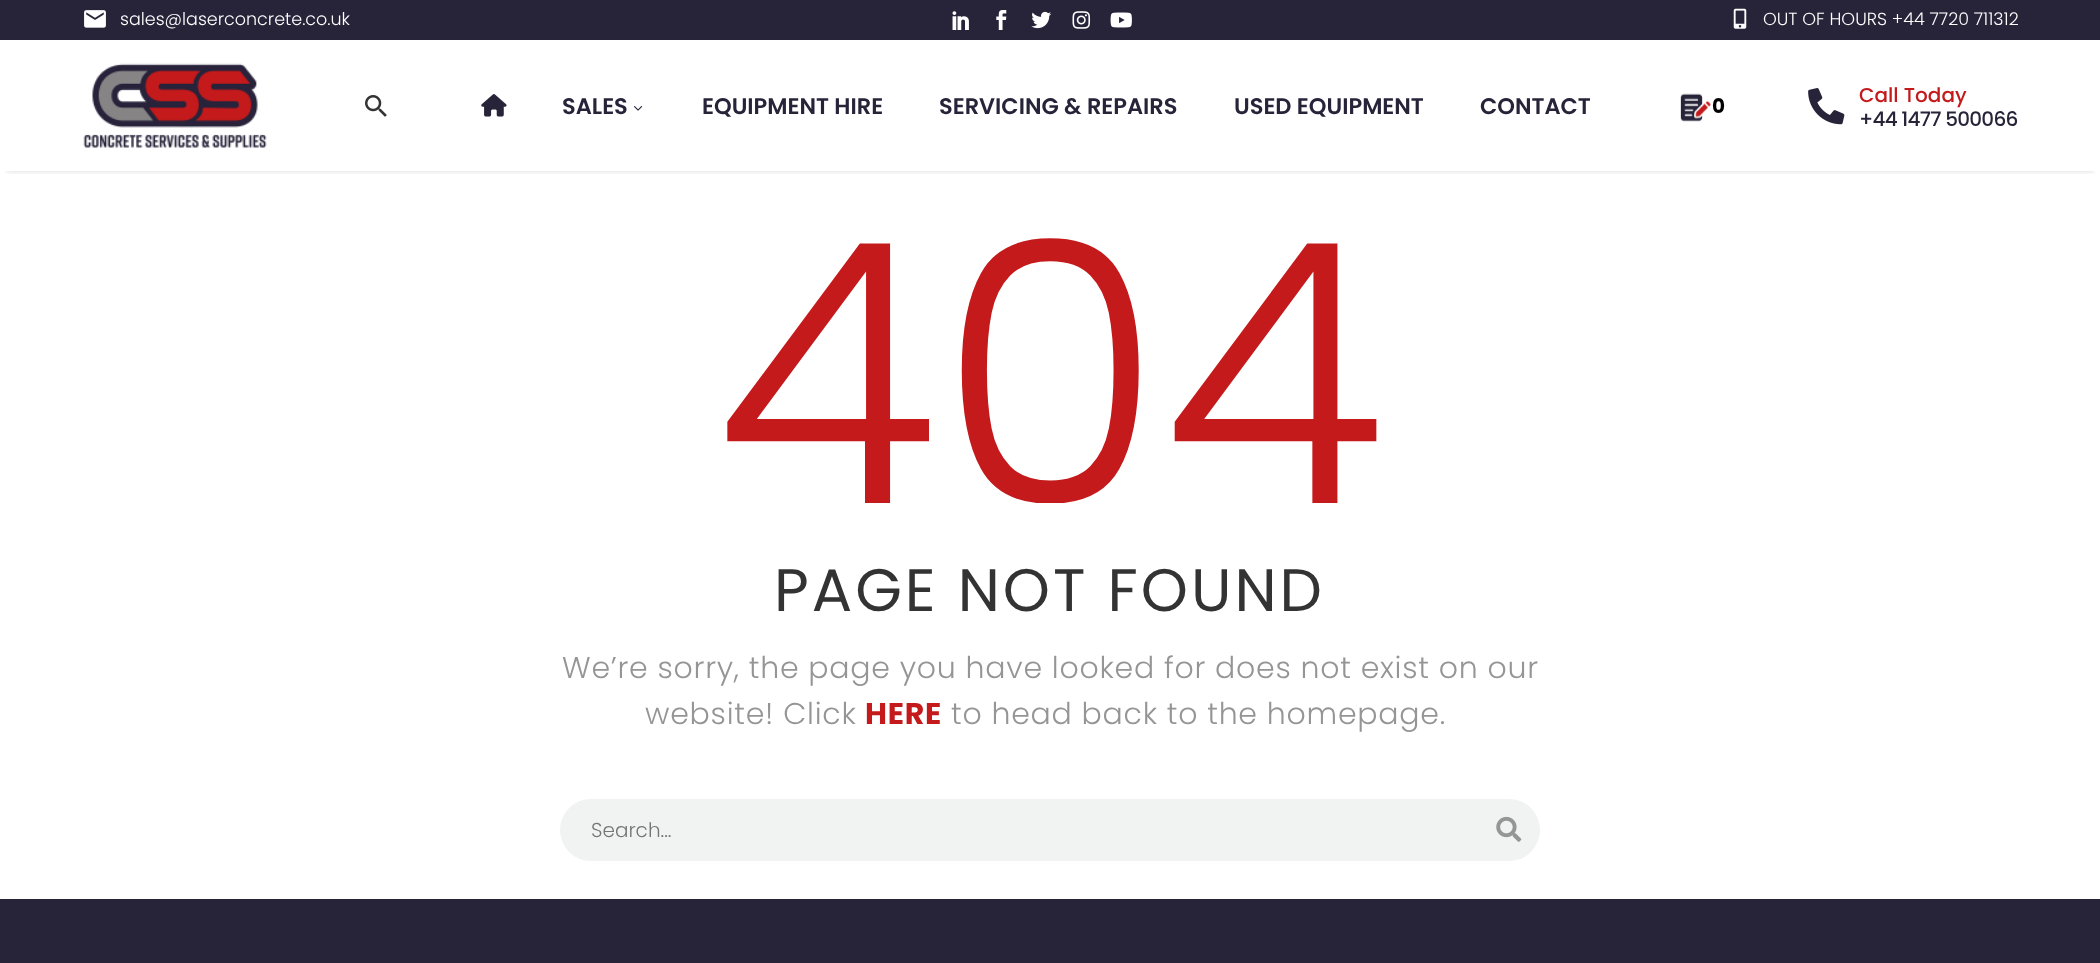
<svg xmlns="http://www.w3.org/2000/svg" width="2100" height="963">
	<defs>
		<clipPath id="clip1"><rect x="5" y="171" width="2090" height="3" /></clipPath>
		<clipPath id="clip2"><rect x="575" y="234" width="950" height="269" /></clipPath>
	</defs>
	<rect width="100%" height="100%" fill="#FFFFFF" />
	<rect x="0" y="0" width="2100" height="40" fill="#27243A" />
	<image x="84" y="10" width="22" height="18" href="assets/img1.png" />
	<text x="120" y="25" font-family="Poppins" font-size="17.5" font-weight="300" fill="#FFFFFF">sales@laserconcrete.co.uk</text>
	<image x="952" y="11" width="17" height="19" href="assets/img2.png" />
	<image x="996" y="10" width="11" height="20" href="assets/img3.png" />
	<image x="1031" y="11" width="21" height="18" href="assets/img4.png" />
	<image x="1072" y="11" width="19" height="18" href="assets/img5.png" />
	<image x="1110" y="12" width="22" height="16" href="assets/img6.png" />
	<image x="1733" y="8" width="14" height="21" href="assets/img7.png" />
	<text x="1763" y="25" font-family="Poppins" font-size="17.5" font-weight="300" fill="#FFFFFF">OUT OF HOURS +44 7720 711312</text>
	<g clip-path="url(#clip1)">
		<rect x="6" y="53" width="2088" height="118" fill="#000000" fill-opacity="0.15" filter="blur(3px)" />
	</g>
	<image x="83" y="63" width="184" height="85" href="assets/img8.png" />
	<image x="365" y="95" width="22" height="22" href="assets/img9.png" />
	<image x="481" y="94" width="26" height="23" href="assets/img10.png" />
	<text x="562" y="114" font-family="Poppins" font-size="22.5" font-weight="600" fill="#27243A">SALES</text>
	<image x="634" y="106" width="9" height="5" href="assets/img11.png" />
	<g font-family="Poppins" font-size="22.5" font-weight="600" fill="#27243A">
		<text x="702" y="114">EQUIPMENT HIRE</text>
		<text x="939" y="114">SERVICING &amp; REPAIRS</text>
		<text x="1234" y="114">USED EQUIPMENT</text>
		<text x="1480" y="114">CONTACT</text>
	</g>
	<image x="1680" y="93" width="31" height="29" href="assets/img12.png" />
	<text x="1712" y="113" font-family="Poppins" font-size="20" font-weight="700" fill="#000000">0</text>
	<image x="1808" y="88" width="37" height="37" href="assets/img13.png" />
	<text x="1859" y="102" font-family="Poppins" font-size="20" font-weight="500" fill="#C41A1B">Call Today</text>
	<text x="1859" y="126" font-family="Poppins" font-size="20" font-weight="500" letter-spacing="-0.75" fill="#27243A">+44 1477 500066</text>
	<g clip-path="url(#clip2)">
		<text x="715" y="503" font-family="Poppins" font-size="364" font-weight="300" fill="#C41A1B">404</text>
	</g>
	<text x="774" y="611" font-family="Poppins" font-size="60" letter-spacing="3" fill="#333333">PAGE NOT FOUND</text>
	<g font-family="Poppins" font-size="30" font-weight="300" letter-spacing="0.75" fill="#959595">
		<text x="562" y="678">We’re sorry, the page you have looked for does not exist on our</text>
		<text x="645" y="724">website! Click</text>
	</g>
	<text x="865" y="724" font-family="Poppins" font-size="30" font-weight="700" letter-spacing="0.75" fill="#C41A1B">HERE</text>
	<text x="951" y="724" font-family="Poppins" font-size="30" font-weight="300" letter-spacing="0.75" fill="#959595">to head back to the homepage.</text>
	<rect x="560" y="799" width="980" height="62" rx="31" fill="#F0F3F2" />
	<text x="591" y="837" font-family="Poppins" font-size="20" font-weight="300" fill="#757575">Search...</text>
	<image x="1496" y="816" width="26" height="26" href="assets/img14.png" />
	<rect x="0" y="899" width="2100" height="64" fill="#27243A" />
</svg>
